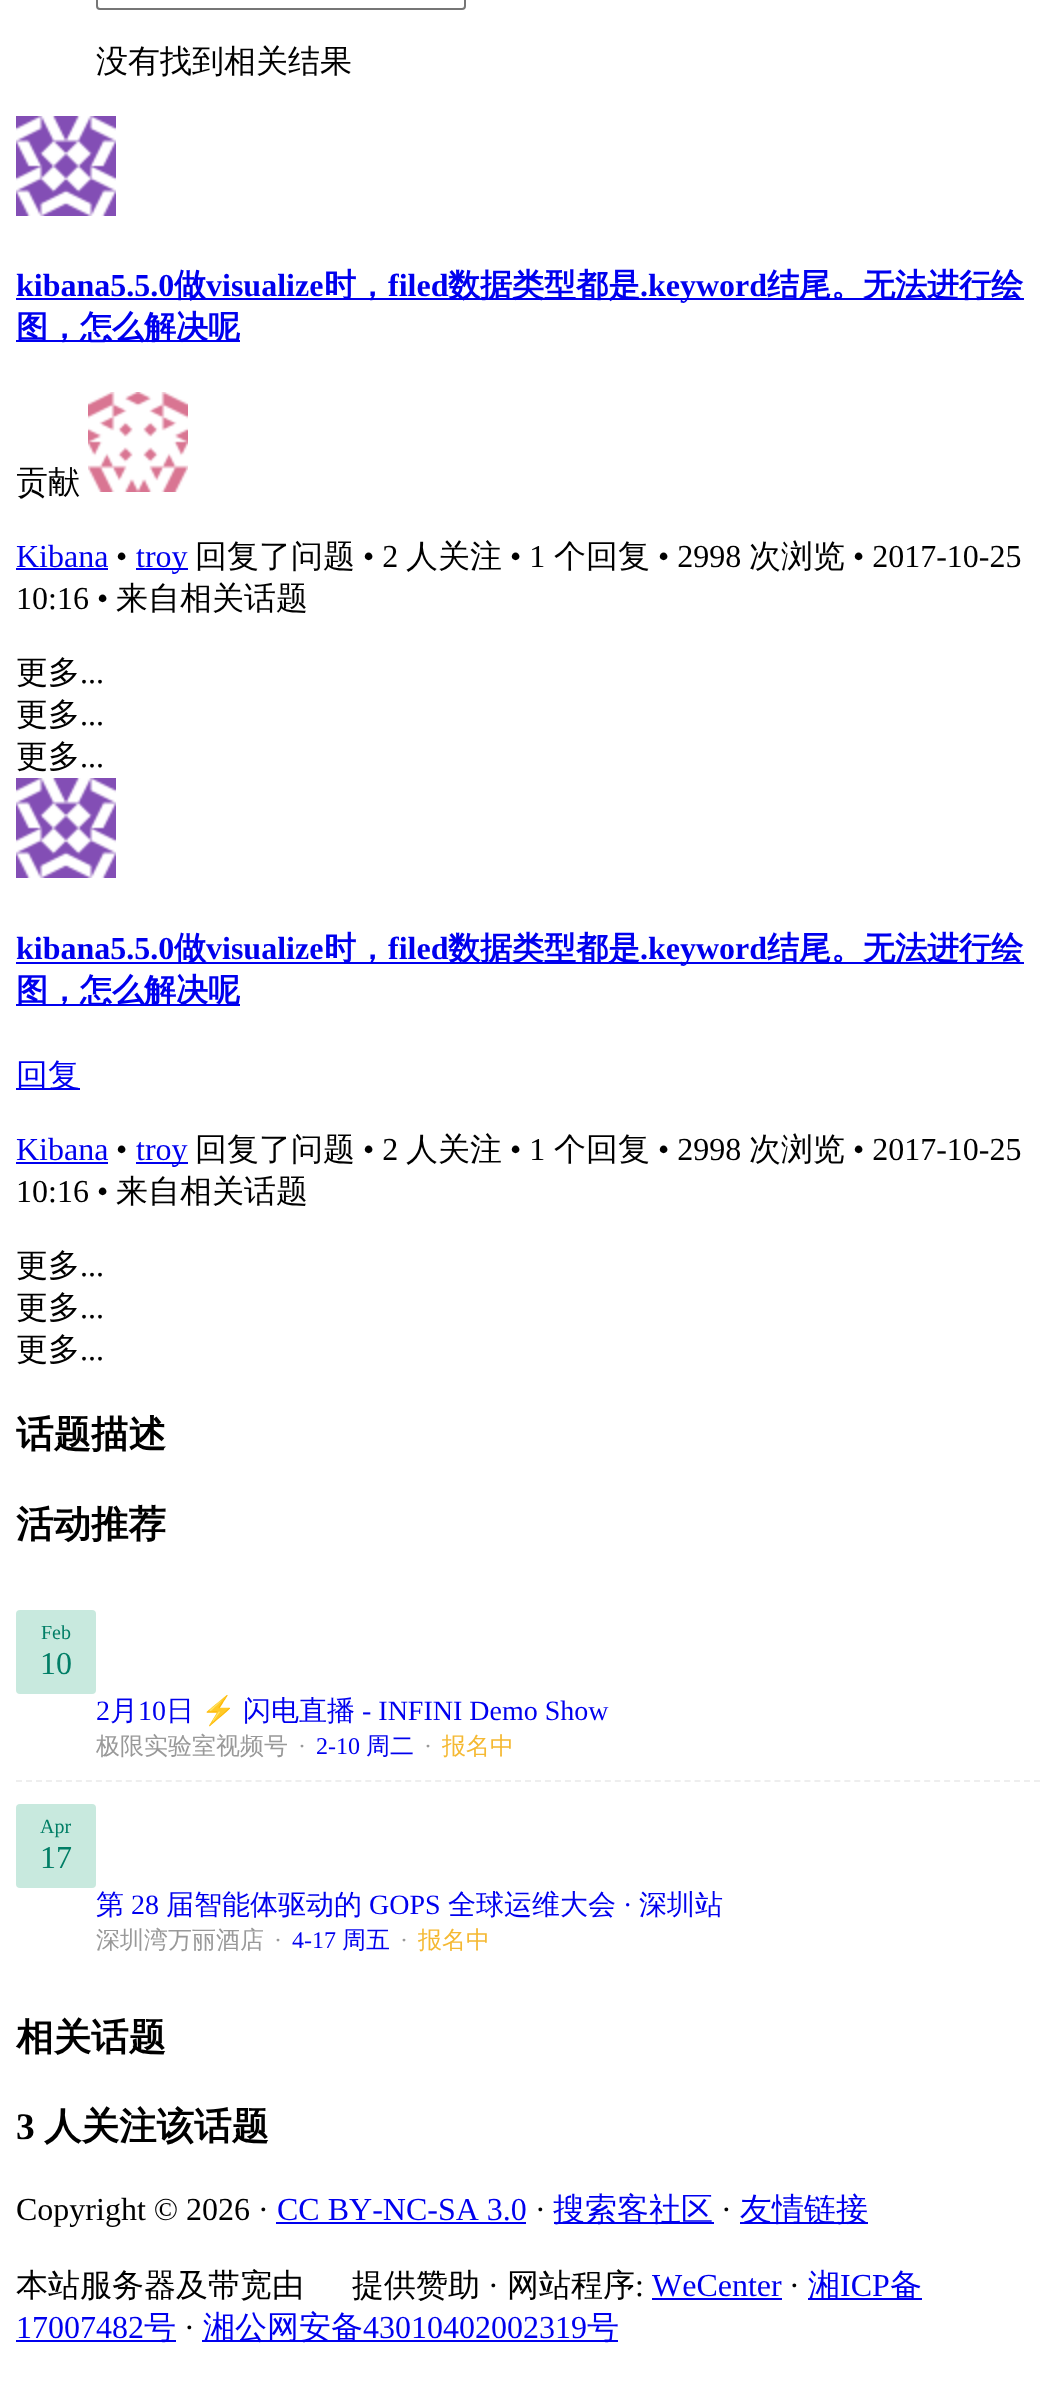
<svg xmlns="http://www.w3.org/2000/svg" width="1055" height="2382">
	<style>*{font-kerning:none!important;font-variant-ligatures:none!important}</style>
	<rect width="100%" height="100%" fill="#FFFFFF" />
	<rect x="97" y="-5" width="368" height="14" rx="3" fill="none" stroke="#767676" stroke-width="2" />
	<text x="96" y="72" font-family="WenQuanYi Zen Hei" font-size="32" font-weight="500" fill="#000000">没有找到相关结果</text>
	<image x="16" y="116" width="100" height="100" href="assets/img1.png" />
	<text x="16" y="296" font-family="Liberation Serif" font-size="32" font-weight="700" fill="#0000EE">kibana5.5.0</text>
	<rect x="16" y="298" width="1008" height="2" fill="#0000EE" />
	<text x="174" y="296" font-family="WenQuanYi Zen Hei" font-size="32" font-weight="700" fill="#0000EE">做</text>
	<text x="206" y="296" font-family="Liberation Serif" font-size="32" font-weight="700" fill="#0000EE">visualize</text>
	<text x="324" y="296" font-family="WenQuanYi Zen Hei" font-size="32" font-weight="700" fill="#0000EE">时，</text>
	<text x="388" y="296" font-family="Liberation Serif" font-size="32" font-weight="700" fill="#0000EE">filed</text>
	<text x="448" y="296" font-family="WenQuanYi Zen Hei" font-size="32" font-weight="700" fill="#0000EE">数据类型都是</text>
	<text x="640" y="296" font-family="Liberation Serif" font-size="32" font-weight="700" fill="#0000EE">.keyword</text>
	<text x="767" y="296" font-family="WenQuanYi Zen Hei" font-size="32" font-weight="700" fill="#0000EE">结尾。无法进行绘</text>
	<rect x="16" y="340" width="224" height="2" fill="#0000EE" />
	<text x="16" y="338" font-family="WenQuanYi Zen Hei" font-size="32" font-weight="700" fill="#0000EE">图，怎么解决呢</text>
	<text x="16" y="493" font-family="WenQuanYi Zen Hei" font-size="32" font-weight="500" fill="#000000">贡献</text>
	<image x="88" y="392" width="100" height="100" href="assets/img2.png" />
	<text x="16" y="567" font-family="Liberation Serif" font-size="32" fill="#0000EE">Kibana</text>
	<rect x="16" y="568" width="92" height="2" fill="#0000EE" />
	<text x="116" y="567" font-family="Liberation Serif" font-size="32" fill="#000000">•</text>
	<rect x="136" y="568" width="52" height="2" fill="#0000EE" />
	<text x="136" y="567" font-family="Liberation Serif" font-size="32" fill="#0000EE">troy</text>
	<text x="195" y="567" font-family="WenQuanYi Zen Hei" font-size="32" font-weight="500" fill="#000000">回复了问题</text>
	<text x="363" y="567" font-family="Liberation Serif" font-size="32" fill="#000000">• 2</text>
	<text x="406" y="567" font-family="WenQuanYi Zen Hei" font-size="32" font-weight="500" fill="#000000">人关注</text>
	<text x="510" y="567" font-family="Liberation Serif" font-size="32" fill="#000000">• 1</text>
	<text x="554" y="567" font-family="WenQuanYi Zen Hei" font-size="32" font-weight="500" fill="#000000">个回复</text>
	<text x="658" y="567" font-family="Liberation Serif" font-size="32" fill="#000000">• 2998</text>
	<text x="749" y="567" font-family="WenQuanYi Zen Hei" font-size="32" font-weight="500" fill="#000000">次浏览</text>
	<g font-family="Liberation Serif" font-size="32" fill="#000000">
		<text x="853" y="567">• 2017-10-25</text>
		<text x="16" y="609">10:16 •</text>
	</g>
	<g font-family="WenQuanYi Zen Hei" font-size="32" font-weight="500" fill="#000000">
		<text x="116" y="609">来自相关话题</text>
		<text x="16" y="683">更多</text>
	</g>
	<text x="80" y="683" font-family="Liberation Serif" font-size="32" fill="#000000">...</text>
	<text x="16" y="725" font-family="WenQuanYi Zen Hei" font-size="32" font-weight="500" fill="#000000">更多</text>
	<text x="80" y="725" font-family="Liberation Serif" font-size="32" fill="#000000">...</text>
	<text x="16" y="767" font-family="WenQuanYi Zen Hei" font-size="32" font-weight="500" fill="#000000">更多</text>
	<text x="80" y="767" font-family="Liberation Serif" font-size="32" fill="#000000">...</text>
	<image x="16" y="778" width="100" height="100" href="assets/img1.png" />
	<text x="16" y="959" font-family="Liberation Serif" font-size="32" font-weight="700" fill="#0000EE">kibana5.5.0</text>
	<rect x="16" y="962" width="1008" height="2" fill="#0000EE" />
	<text x="174" y="959" font-family="WenQuanYi Zen Hei" font-size="32" font-weight="700" fill="#0000EE">做</text>
	<text x="206" y="959" font-family="Liberation Serif" font-size="32" font-weight="700" fill="#0000EE">visualize</text>
	<text x="324" y="959" font-family="WenQuanYi Zen Hei" font-size="32" font-weight="700" fill="#0000EE">时，</text>
	<text x="388" y="959" font-family="Liberation Serif" font-size="32" font-weight="700" fill="#0000EE">filed</text>
	<text x="448" y="959" font-family="WenQuanYi Zen Hei" font-size="32" font-weight="700" fill="#0000EE">数据类型都是</text>
	<text x="640" y="959" font-family="Liberation Serif" font-size="32" font-weight="700" fill="#0000EE">.keyword</text>
	<text x="767" y="959" font-family="WenQuanYi Zen Hei" font-size="32" font-weight="700" fill="#0000EE">结尾。无法进行绘</text>
	<rect x="16" y="1004" width="224" height="2" fill="#0000EE" />
	<text x="16" y="1001" font-family="WenQuanYi Zen Hei" font-size="32" font-weight="700" fill="#0000EE">图，怎么解决呢</text>
	<rect x="16" y="1088" width="64" height="2" fill="#0000EE" />
	<text x="16" y="1086" font-family="WenQuanYi Zen Hei" font-size="32" font-weight="500" fill="#0000EE">回复</text>
	<text x="16" y="1160" font-family="Liberation Serif" font-size="32" fill="#0000EE">Kibana</text>
	<rect x="16" y="1162" width="92" height="2" fill="#0000EE" />
	<text x="116" y="1160" font-family="Liberation Serif" font-size="32" fill="#000000">•</text>
	<rect x="136" y="1162" width="52" height="2" fill="#0000EE" />
	<text x="136" y="1160" font-family="Liberation Serif" font-size="32" fill="#0000EE">troy</text>
	<text x="195" y="1160" font-family="WenQuanYi Zen Hei" font-size="32" font-weight="500" fill="#000000">回复了问题</text>
	<text x="363" y="1160" font-family="Liberation Serif" font-size="32" fill="#000000">• 2</text>
	<text x="406" y="1160" font-family="WenQuanYi Zen Hei" font-size="32" font-weight="500" fill="#000000">人关注</text>
	<text x="510" y="1160" font-family="Liberation Serif" font-size="32" fill="#000000">• 1</text>
	<text x="554" y="1160" font-family="WenQuanYi Zen Hei" font-size="32" font-weight="500" fill="#000000">个回复</text>
	<text x="658" y="1160" font-family="Liberation Serif" font-size="32" fill="#000000">• 2998</text>
	<text x="749" y="1160" font-family="WenQuanYi Zen Hei" font-size="32" font-weight="500" fill="#000000">次浏览</text>
	<g font-family="Liberation Serif" font-size="32" fill="#000000">
		<text x="853" y="1160">• 2017-10-25</text>
		<text x="16" y="1202">10:16 •</text>
	</g>
	<g font-family="WenQuanYi Zen Hei" font-size="32" font-weight="500" fill="#000000">
		<text x="116" y="1202">来自相关话题</text>
		<text x="16" y="1276">更多</text>
	</g>
	<text x="80" y="1276" font-family="Liberation Serif" font-size="32" fill="#000000">...</text>
	<text x="16" y="1318" font-family="WenQuanYi Zen Hei" font-size="32" font-weight="500" fill="#000000">更多</text>
	<text x="80" y="1318" font-family="Liberation Serif" font-size="32" fill="#000000">...</text>
	<text x="16" y="1360" font-family="WenQuanYi Zen Hei" font-size="32" font-weight="500" fill="#000000">更多</text>
	<text x="80" y="1360" font-family="Liberation Serif" font-size="32" fill="#000000">...</text>
	<g font-family="WenQuanYi Zen Hei" font-size="37.5" font-weight="700" fill="#000000">
		<text x="16" y="1447">话题描述</text>
		<text x="16" y="1537">活动推荐</text>
	</g>
	<path d="M16 1781H1040" fill="none" stroke="#EEEEEE" stroke-width="2" stroke-dasharray="6 3.98" />
	<rect x="16" y="1610" width="80" height="84" rx="4" fill="#C8E9DE" />
	<text x="41" y="1639" font-family="Liberation Serif" font-size="20" fill="#017E66">Feb</text>
	<text x="40" y="1674" font-family="Liberation Serif" font-size="32" fill="#017E66">10</text>
	<text x="96" y="1720" font-family="Liberation Serif" font-size="28" fill="#0000EE">2</text>
	<text x="110" y="1720" font-family="WenQuanYi Zen Hei" font-size="28" font-weight="500" fill="#0000EE">月</text>
	<text x="138" y="1720" font-family="Liberation Serif" font-size="28" fill="#0000EE">10</text>
	<text x="166" y="1720" font-family="WenQuanYi Zen Hei" font-size="28" font-weight="500" fill="#0000EE">日</text>
	<text x="201" y="1720" font-family="Noto Color Emoji" font-size="28" fill="#0000EE">⚡</text>
	<text x="243" y="1720" font-family="WenQuanYi Zen Hei" font-size="28" font-weight="500" fill="#0000EE">闪电直播</text>
	<text x="362" y="1720" font-family="Liberation Serif" font-size="28" fill="#0000EE">- INFINI Demo Show</text>
	<text x="96" y="1754" font-family="WenQuanYi Zen Hei" font-size="24" font-weight="500" fill="#999999">极限实验室视频号</text>
	<text x="298" y="1754" font-family="Liberation Serif" font-size="24" fill="#999999">·</text>
	<text x="316" y="1754" font-family="Liberation Serif" font-size="24" fill="#0000EE">2-10</text>
	<text x="366" y="1754" font-family="WenQuanYi Zen Hei" font-size="24" font-weight="500" fill="#0000EE">周二</text>
	<text x="424" y="1754" font-family="Liberation Serif" font-size="24" fill="#999999">·</text>
	<text x="442" y="1754" font-family="WenQuanYi Zen Hei" font-size="24" font-weight="500" fill="#F5B933">报名中</text>
	<rect x="16" y="1804" width="80" height="84" rx="4" fill="#C8E9DE" />
	<text x="40" y="1833" font-family="Liberation Serif" font-size="20" fill="#017E66">Apr</text>
	<text x="40" y="1868" font-family="Liberation Serif" font-size="32" fill="#017E66">17</text>
	<text x="96" y="1914" font-family="WenQuanYi Zen Hei" font-size="28" font-weight="500" fill="#0000EE">第</text>
	<text x="131" y="1914" font-family="Liberation Serif" font-size="28" fill="#0000EE">28</text>
	<text x="166" y="1914" font-family="WenQuanYi Zen Hei" font-size="28" font-weight="500" fill="#0000EE">届智能体驱动的</text>
	<text x="369" y="1914" font-family="Liberation Serif" font-size="28" fill="#0000EE">GOPS</text>
	<text x="448" y="1914" font-family="WenQuanYi Zen Hei" font-size="28" font-weight="500" fill="#0000EE">全球运维大会</text>
	<text x="623" y="1914" font-family="Liberation Serif" font-size="28" fill="#0000EE">·</text>
	<text x="639" y="1914" font-family="WenQuanYi Zen Hei" font-size="28" font-weight="500" fill="#0000EE">深圳站</text>
	<text x="96" y="1948" font-family="WenQuanYi Zen Hei" font-size="24" font-weight="500" fill="#999999">深圳湾万丽酒店</text>
	<text x="274" y="1948" font-family="Liberation Serif" font-size="24" fill="#999999">·</text>
	<text x="292" y="1948" font-family="Liberation Serif" font-size="24" fill="#0000EE">4-17</text>
	<text x="342" y="1948" font-family="WenQuanYi Zen Hei" font-size="24" font-weight="500" fill="#0000EE">周五</text>
	<text x="400" y="1948" font-family="Liberation Serif" font-size="24" fill="#999999">·</text>
	<text x="418" y="1948" font-family="WenQuanYi Zen Hei" font-size="24" font-weight="500" fill="#F5B933">报名中</text>
	<text x="16" y="2050" font-family="WenQuanYi Zen Hei" font-size="37.5" font-weight="700" fill="#000000">相关话题</text>
	<text x="16" y="2139" font-family="Liberation Serif" font-size="37.5" font-weight="700" fill="#000000">3</text>
	<text x="44" y="2139" font-family="WenQuanYi Zen Hei" font-size="37.5" font-weight="700" fill="#000000">人关注该话题</text>
	<text x="16" y="2220" font-family="Liberation Serif" font-size="32" fill="#000000">Copyright © 2026 ·</text>
	<text x="277" y="2220" font-family="Liberation Serif" font-size="32" fill="#0000EE">CC BY-NC-SA 3.0</text>
	<rect x="276" y="2222" width="250" height="2" fill="#0000EE" />
	<text x="535" y="2220" font-family="Liberation Serif" font-size="32" fill="#000000">·</text>
	<rect x="554" y="2222" width="160" height="2" fill="#0000EE" />
	<text x="553" y="2220" font-family="WenQuanYi Zen Hei" font-size="32" font-weight="500" fill="#0000EE">搜索客社区</text>
	<text x="721" y="2220" font-family="Liberation Serif" font-size="32" fill="#000000">·</text>
	<rect x="740" y="2222" width="128" height="2" fill="#0000EE" />
	<text x="740" y="2220" font-family="WenQuanYi Zen Hei" font-size="32" font-weight="500" fill="#0000EE">友情链接</text>
	<g font-family="WenQuanYi Zen Hei" font-size="32" font-weight="500" fill="#000000">
		<text x="16" y="2296">本站服务器及带宽由</text>
		<text x="352" y="2296">提供赞助</text>
	</g>
	<text x="488" y="2296" font-family="Liberation Serif" font-size="32" fill="#000000">·</text>
	<text x="507" y="2296" font-family="WenQuanYi Zen Hei" font-size="32" font-weight="500" fill="#000000">网站程序</text>
	<text x="635" y="2296" font-family="Liberation Serif" font-size="32" fill="#000000">:</text>
	<text x="652" y="2296" font-family="Liberation Serif" font-size="32" fill="#0000EE">WeCenter</text>
	<rect x="652" y="2298" width="130" height="2" fill="#0000EE" />
	<text x="789" y="2296" font-family="Liberation Serif" font-size="32" fill="#000000">·</text>
	<rect x="808" y="2298" width="114" height="2" fill="#0000EE" />
	<text x="808" y="2296" font-family="WenQuanYi Zen Hei" font-size="32" font-weight="500" fill="#0000EE">湘</text>
	<text x="840" y="2296" font-family="Liberation Serif" font-size="32" fill="#0000EE">ICP</text>
	<text x="890" y="2296" font-family="WenQuanYi Zen Hei" font-size="32" font-weight="500" fill="#0000EE">备</text>
	<text x="16" y="2338" font-family="Liberation Serif" font-size="32" fill="#0000EE">17007482</text>
	<rect x="16" y="2340" width="160" height="2" fill="#0000EE" />
	<text x="144" y="2338" font-family="WenQuanYi Zen Hei" font-size="32" font-weight="500" fill="#0000EE">号</text>
	<text x="184" y="2338" font-family="Liberation Serif" font-size="32" fill="#000000">·</text>
	<rect x="202" y="2340" width="416" height="2" fill="#0000EE" />
	<text x="203" y="2338" font-family="WenQuanYi Zen Hei" font-size="32" font-weight="500" fill="#0000EE">湘公网安备</text>
	<text x="363" y="2338" font-family="Liberation Serif" font-size="32" fill="#0000EE">43010402002319</text>
	<text x="587" y="2338" font-family="WenQuanYi Zen Hei" font-size="32" font-weight="500" fill="#0000EE">号</text>
</svg>
